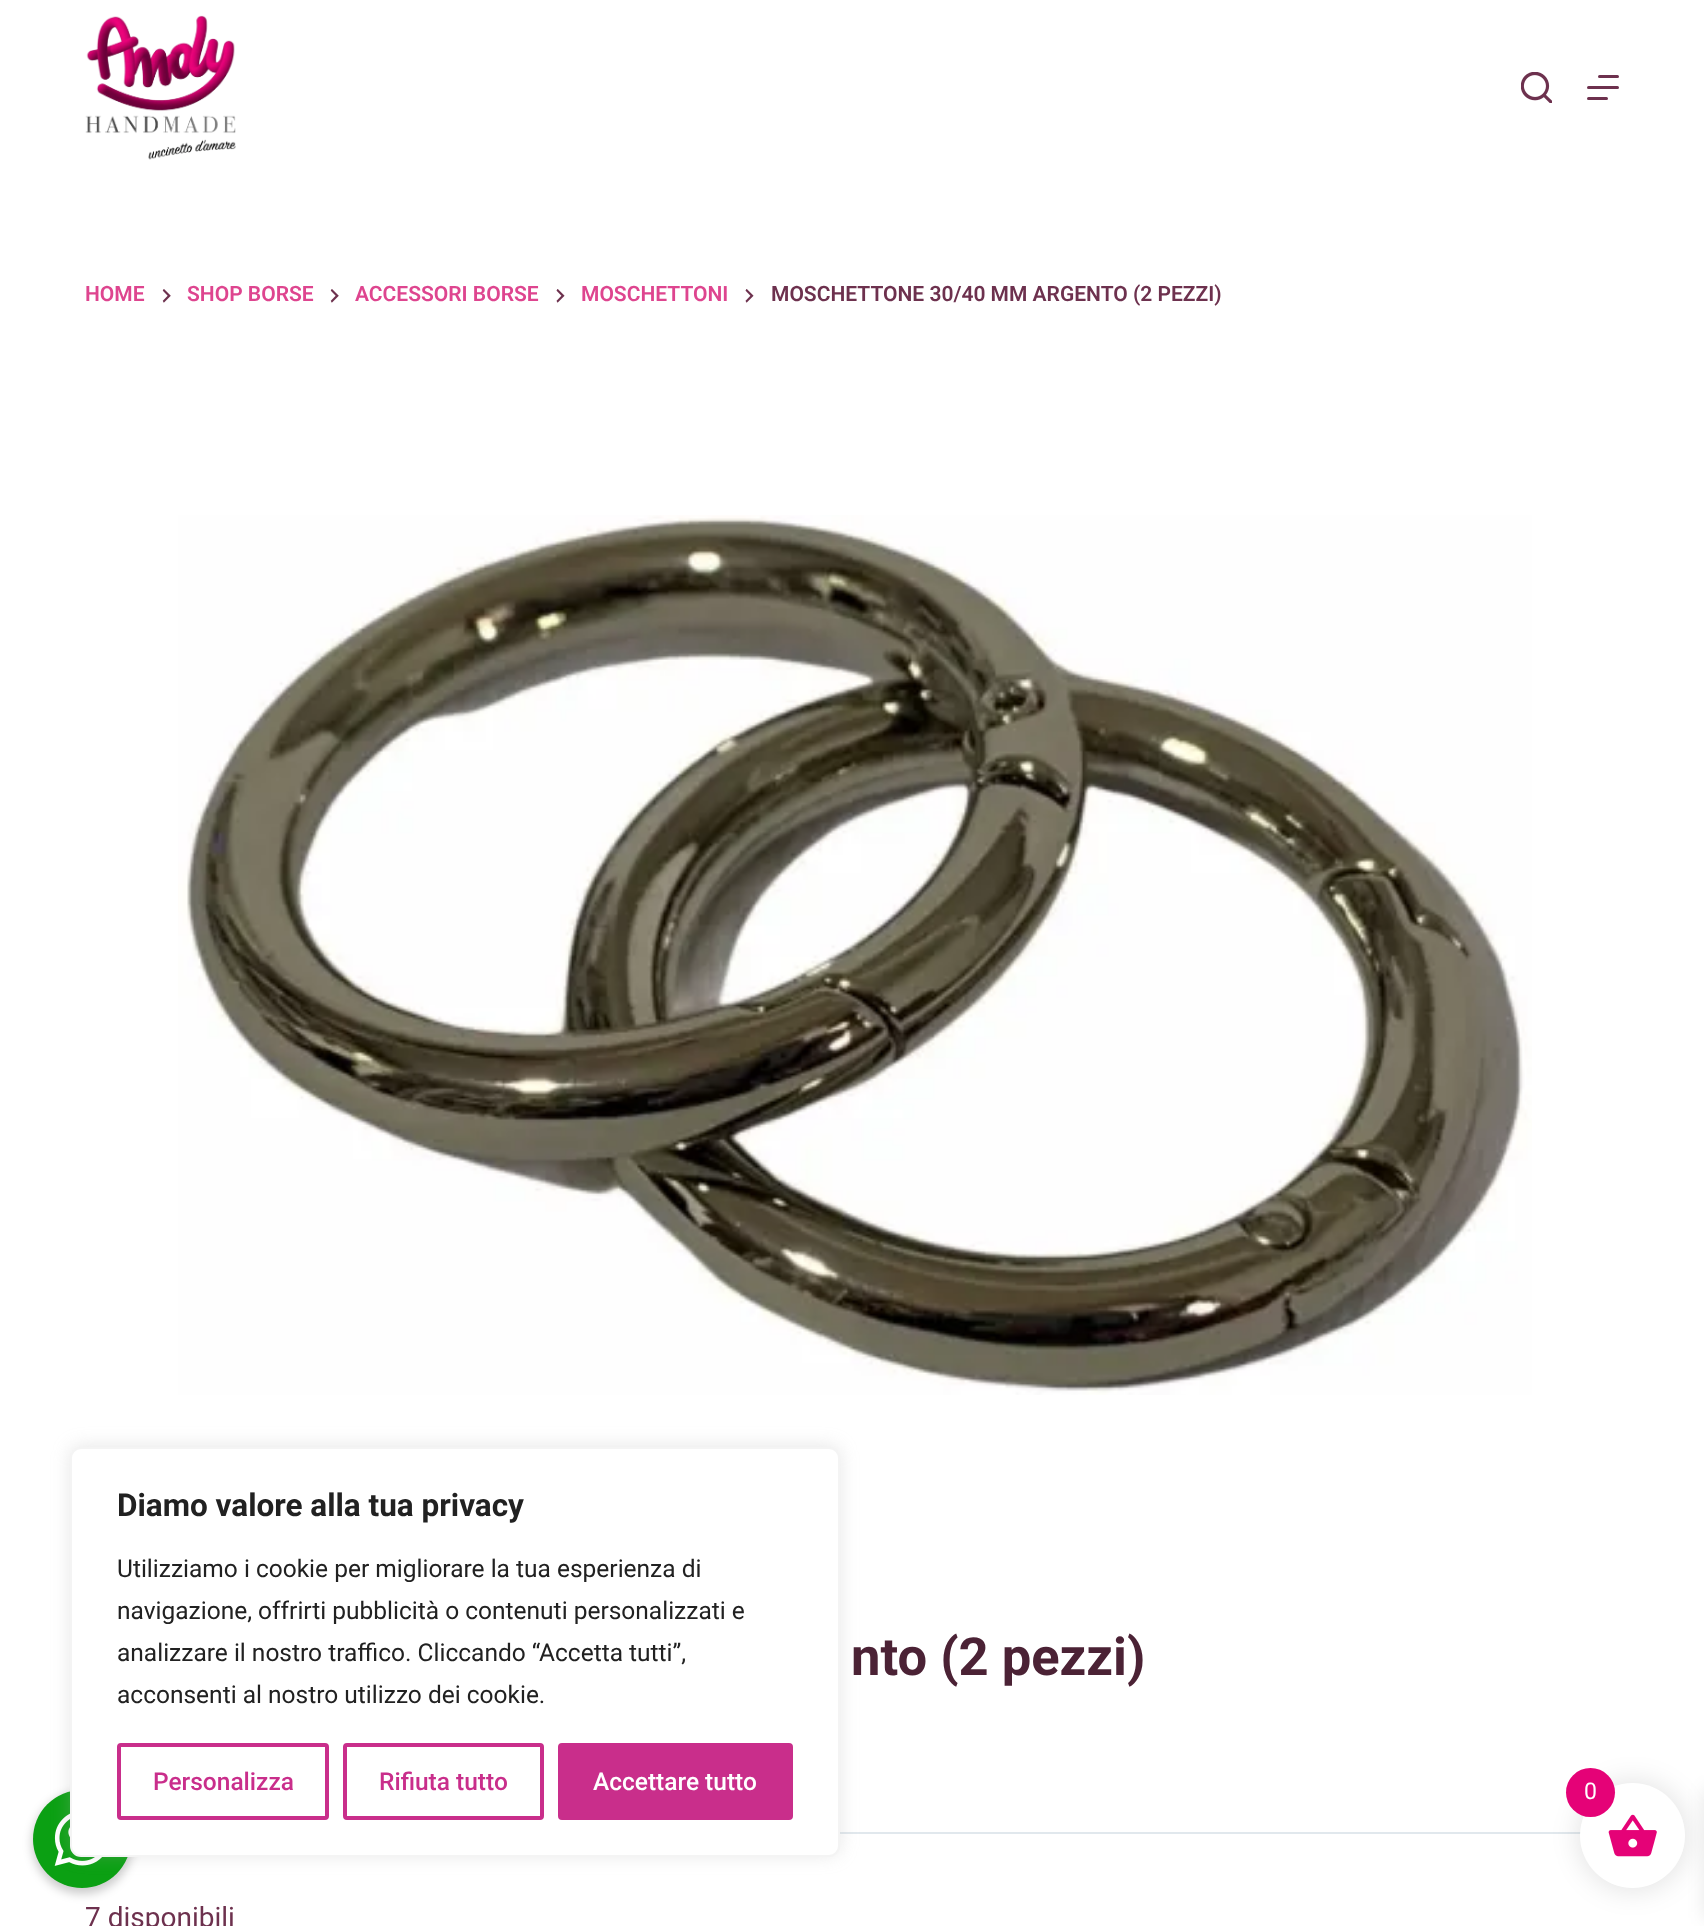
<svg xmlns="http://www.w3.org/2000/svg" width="1704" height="1926">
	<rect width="100%" height="100%" fill="#FFFFFF" />
	<image x="85" y="15" width="151" height="145" href="assets/img1.png" />
	<image x="1521" y="72" width="31" height="31" href="assets/img2.png" />
	<rect x="1598" y="75" width="21" height="3" rx="1.5" fill="#6D314E" />
	<rect x="1587" y="86" width="32" height="3" rx="1.5" fill="#6D314E" />
	<rect x="1587" y="97" width="21" height="3" rx="1.5" fill="#6D314E" />
	<text x="85" y="301" font-family="Roboto" font-size="21" font-weight="600" fill="#DE458F">HOME</text>
	<image x="162" y="289" width="9" height="14" href="assets/img3.png" />
	<text x="187" y="301" font-family="Roboto" font-size="21" font-weight="600" fill="#DE458F">SHOP BORSE</text>
	<image x="330" y="289" width="9" height="14" href="assets/img3.png" />
	<text x="355" y="301" font-family="Roboto" font-size="21" font-weight="600" fill="#DE458F">ACCESSORI BORSE</text>
	<image x="556" y="289" width="9" height="14" href="assets/img4.png" />
	<text x="581" y="301" font-family="Roboto" font-size="21" font-weight="600" fill="#DE458F">MOSCHETTONI</text>
	<image x="745" y="289" width="9" height="14" href="assets/img4.png" />
	<text x="771" y="301" font-family="Roboto" font-size="21" font-weight="600" fill="#6D314E">MOSCHETTONE 30/40 MM ARGENTO (2 PEZZI)</text>
	<image x="178" y="515" width="1354" height="880" href="assets/img5.png" />
	<text x="851" y="1675" font-family="Roboto" font-size="52.5" font-weight="700" fill="#4B2235">nto (2 pezzi)</text>
	<rect x="840" y="1832" width="741" height="2" fill="#E1E8ED" />
	<text x="85" y="1927" font-family="Roboto" font-size="28" fill="#6D314E">7 disponibili</text>
	<rect x="32" y="1792" width="101" height="102" rx="50.5" fill="#000000" fill-opacity="0.2" filter="blur(5px)" />
	<circle cx="82" cy="1839" r="49" fill="#0BA013" />
	<image x="54" y="1813" width="48" height="53" href="assets/img6.png" />
	<rect x="70" y="1446" width="770" height="409" rx="11" fill="#ACABAB" fill-opacity="0.3" filter="blur(9px)" />
	<rect x="71" y="1448" width="768" height="408" rx="10" fill="#FFFFFF" stroke="#F4F4F4" stroke-width="2" />
	<text x="117" y="1516" font-family="Roboto" font-size="31.5" font-weight="700" fill="#212121">Diamo valore alla tua privacy</text>
	<g font-family="Roboto" font-size="24.5" fill="#212121">
		<text x="117" y="1577">Utilizziamo i cookie per migliorare la tua esperienza di</text>
		<text x="117" y="1619">navigazione, offrirti pubblicità o contenuti personalizzati e</text>
		<text x="117" y="1661">analizzare il nostro traffico. Cliccando “Accetta tutti”,</text>
		<text x="117" y="1703">acconsenti al nostro utilizzo dei cookie.</text>
	</g>
	<rect x="119" y="1745" width="208" height="73" rx="2" fill="none" stroke="#C92E8B" stroke-width="4" />
	<text x="153" y="1790" font-family="Roboto" font-size="24.5" font-weight="500" fill="#C92E8B">Personalizza</text>
	<rect x="345" y="1745" width="197" height="73" rx="2" fill="none" stroke="#C92E8B" stroke-width="4" />
	<text x="379" y="1790" font-family="Roboto" font-size="24.5" font-weight="500" fill="#C92E8B">Rifiuta tutto</text>
	<rect x="560" y="1745" width="231" height="73" rx="2" fill="#C92E8B" stroke="#C92E8B" stroke-width="4" />
	<text x="593" y="1790" font-family="Roboto" font-size="24.5" font-weight="500" fill="#FFFFFF">Accettare tutto</text>
	<rect x="1577" y="1780" width="112" height="112" rx="56" fill="#000000" fill-opacity="0.1" filter="blur(13px)" />
	<rect x="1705" y="1789" width="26" height="129" fill="#000000" fill-opacity="0.1" filter="blur(9px)" />
	<circle cx="1632.5" cy="1835.5" r="52.5" fill="#FFFFFF" />
	<image x="1608" y="1814" width="49" height="43" href="assets/img7.png" />
	<circle cx="1590.5" cy="1792.5" r="24.5" fill="#E50277" />
	<text x="1584" y="1799" font-family="Roboto" font-size="23" fill="#FFFFFF">0</text>
</svg>
